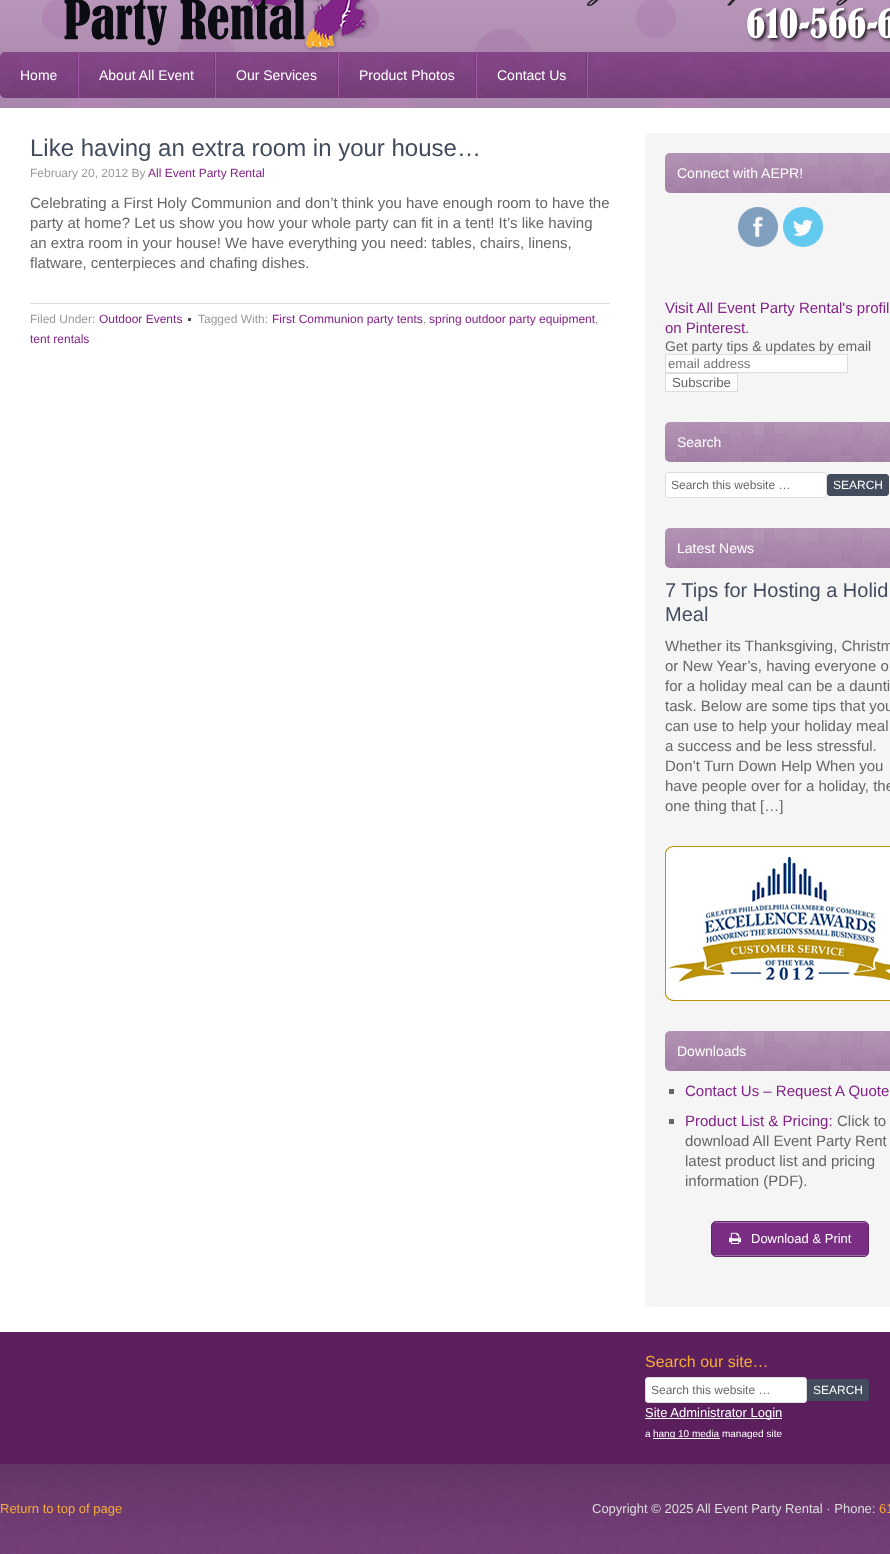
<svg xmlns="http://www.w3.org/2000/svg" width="890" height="1554">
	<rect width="100%" height="100%" fill="#FFFFFF" />
	<image x="0" y="1464" width="890" height="90" href="assets/img1.png" />
	<image x="0" y="0" width="890" height="108" href="assets/img2.png" />
	<image x="64" y="0" width="826" height="51" href="assets/img3.png" />
	<image x="0" y="52" width="890" height="46" href="assets/img4.png" />
	<image x="77" y="52" width="2" height="46" href="assets/img5.png" />
	<text x="20" y="80" font-family="Liberation Sans" font-size="14" fill="#FFFFFF">Home</text>
	<image x="214" y="52" width="2" height="46" href="assets/img5.png" />
	<text x="99" y="80" font-family="Liberation Sans" font-size="14" fill="#FFFFFF">About All Event</text>
	<image x="337" y="52" width="2" height="46" href="assets/img5.png" />
	<text x="236" y="80" font-family="Liberation Sans" font-size="14" fill="#FFFFFF">Our Services</text>
	<image x="475" y="52" width="2" height="46" href="assets/img5.png" />
	<text x="359" y="80" font-family="Liberation Sans" font-size="14" fill="#FFFFFF">Product Photos</text>
	<image x="586" y="52" width="2" height="46" href="assets/img5.png" />
	<text x="497" y="80" font-family="Liberation Sans" font-size="14" fill="#FFFFFF">Contact Us</text>
	<text x="30" y="156" font-family="Liberation Sans" font-size="24" fill="#424C5D">Like having an extra room in your house…</text>
	<text x="30" y="177" font-family="Liberation Sans" font-size="12" fill="#999999">February 20, 2012 By</text>
	<text x="148" y="177" font-family="Liberation Sans" font-size="12" fill="#832488">All Event Party Rental</text>
	<g font-family="Liberation Sans" font-size="15" fill="#666666">
		<text x="30" y="208">Celebrating a First Holy Communion and don’t think you have enough room to have the</text>
		<text x="30" y="228">party at home? Let us show you how your whole party can fit in a tent! It’s like having</text>
		<text x="30" y="248">an extra room in your house! We have everything you need: tables, chairs, linens,</text>
		<text x="30" y="268">flatware, centerpieces and chafing dishes.</text>
	</g>
	<rect x="30" y="303" width="580" height="1" fill="#DDDDDD" />
	<text x="30" y="323" font-family="Liberation Sans" font-size="12" fill="#999999">Filed Under:</text>
	<text x="99" y="323" font-family="Liberation Sans" font-size="12" fill="#832488">Outdoor Events</text>
	<text x="198" y="323" font-family="Liberation Sans" font-size="12" fill="#999999">Tagged With:</text>
	<rect x="188" y="318" width="3" height="3" fill="#424C5D" />
	<text x="272" y="323" font-family="Liberation Sans" font-size="12" fill="#832488">First Communion party tents</text>
	<text x="423" y="323" font-family="Liberation Sans" font-size="12" fill="#999999">,</text>
	<text x="429" y="323" font-family="Liberation Sans" font-size="12" fill="#832488">spring outdoor party equipment</text>
	<text x="595" y="323" font-family="Liberation Sans" font-size="12" fill="#999999">,</text>
	<text x="30" y="343" font-family="Liberation Sans" font-size="12" fill="#832488">tent rentals</text>
	<rect x="645" y="133" width="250" height="1174" rx="5" fill="#F5F5F5" />
	<image x="665" y="153" width="225" height="40" href="assets/img6.png" />
	<text x="677" y="178" font-family="Liberation Sans" font-size="14" fill="#FFFFFF">Connect with AEPR!</text>
	<image x="738" y="207" width="40" height="40" href="assets/img7.png" />
	<image x="783" y="207" width="40" height="40" href="assets/img8.png" />
	<g font-family="Liberation Sans" font-size="15" fill="#832488">
		<text x="665" y="313">Visit All Event Party Rental's profil</text>
		<text x="665" y="333">on Pinterest.</text>
	</g>
	<text x="665" y="351" font-family="Liberation Sans" font-size="14" fill="#666666">Get party tips &amp; updates by email</text>
	<rect x="665.5" y="354.5" width="182" height="18" fill="#FFFFFF" stroke="#DDDDDD" />
	<text x="668" y="368" font-family="Liberation Sans" font-size="13.25" fill="#757575">email address</text>
	<rect x="665.5" y="373.5" width="72" height="18" fill="#FFFFFF" stroke="#DDDDDD" />
	<text x="672" y="387" font-family="Liberation Sans" font-size="13.25" fill="#666666">Subscribe</text>
	<image x="665" y="422" width="225" height="40" href="assets/img6.png" />
	<text x="677" y="447" font-family="Liberation Sans" font-size="14" fill="#FFFFFF">Search</text>
	<rect x="665.5" y="472.5" width="161" height="25" rx="2.5" fill="#FFFFFF" stroke="#DDDDDD" />
	<text x="671" y="489" font-family="Liberation Sans" font-size="12" fill="#666666">Search this website …</text>
	<rect x="827.5" y="474.5" width="61" height="21" rx="2.5" fill="#424C5D" stroke="#424C5D" />
	<text x="833" y="489" font-family="Liberation Sans" font-size="12" fill="#FFFFFF">SEARCH</text>
	<image x="665" y="528" width="225" height="40" href="assets/img6.png" />
	<text x="677" y="553" font-family="Liberation Sans" font-size="14" fill="#FFFFFF">Latest News</text>
	<g font-family="Liberation Sans" font-size="20" fill="#424C5D">
		<text x="665" y="597">7 Tips for Hosting a Holid</text>
		<text x="665" y="621">Meal</text>
	</g>
	<g font-family="Liberation Sans" font-size="15" fill="#666666">
		<text x="665" y="651">Whether its Thanksgiving, Christm</text>
		<text x="665" y="671">or New Year’s, having everyone o</text>
		<text x="665" y="691">for a holiday meal can be a daunti</text>
		<text x="665" y="711">task. Below are some tips that you</text>
		<text x="665" y="731">can use to help your holiday meal</text>
		<text x="665" y="751">a success and be less stressful.</text>
		<text x="665" y="771">Don’t Turn Down Help When you</text>
		<text x="665" y="791">have people over for a holiday, the</text>
		<text x="665" y="811">one thing that […]</text>
	</g>
	<image x="665" y="846" width="225" height="155" href="assets/img9.png" />
	<image x="665" y="1031" width="225" height="40" href="assets/img6.png" />
	<text x="677" y="1056" font-family="Liberation Sans" font-size="14" fill="#FFFFFF">Downloads</text>
	<rect x="669" y="1089" width="5" height="5" fill="#666666" />
	<text x="685" y="1096" font-family="Liberation Sans" font-size="15" fill="#832488">Contact Us – Request A Quote</text>
	<rect x="669" y="1119" width="5" height="5" fill="#666666" />
	<text x="685" y="1126" font-family="Liberation Sans" font-size="15" fill="#832488">Product List &amp; Pricing:</text>
	<g font-family="Liberation Sans" font-size="15" fill="#666666">
		<text x="837" y="1126">Click to</text>
		<text x="685" y="1146">download All Event Party Rent</text>
		<text x="685" y="1166">latest product list and pricing</text>
		<text x="685" y="1186">information (PDF).</text>
	</g>
	<rect x="711.5" y="1221.5" width="157" height="35" rx="4.5" fill="#792E84" stroke="#61256A" />
	<rect x="715" y="1222" width="151" height="1" fill="#A16DA9" />
	<rect x="715" y="1255" width="151" height="1" fill="#A16DA9" />
	<image x="729" y="1232" width="13" height="12" href="assets/img10.png" />
	<text x="751" y="1243" font-family="Liberation Sans" font-size="13" fill="#FFFFFF">Download &amp; Print</text>
	<rect x="0" y="1332" width="890" height="132" fill="#5C1F5D" />
	<text x="645" y="1367" font-family="Liberation Sans" font-size="16" fill="#F7AC32">Search our site…</text>
	<rect x="645.5" y="1377.5" width="161" height="25" rx="2.5" fill="#FFFFFF" stroke="#DDDDDD" />
	<text x="651" y="1394" font-family="Liberation Sans" font-size="12" fill="#666666">Search this website …</text>
	<rect x="807.5" y="1379.5" width="61" height="21" rx="2.5" fill="#424C5D" stroke="#424C5D" />
	<text x="813" y="1394" font-family="Liberation Sans" font-size="12" fill="#FFFFFF">SEARCH</text>
	<rect x="645" y="1418" width="137" height="1" fill="#FFFFFF" />
	<text x="645" y="1417" font-family="Liberation Sans" font-size="13" fill="#FFFFFF">Site Administrator Login</text>
	<text x="645" y="1437" font-family="Liberation Sans" font-size="10" fill="#FFFFFF">a</text>
	<rect x="653" y="1438" width="67" height="1" fill="#FFFFFF" />
	<text x="653" y="1437" font-family="Liberation Sans" font-size="10" fill="#FFFFFF">hang 10 media managed site</text>
	<text x="0" y="1513" font-family="Liberation Sans" font-size="13" fill="#F7AC32">Return to top of page</text>
	<text x="592" y="1513" font-family="Liberation Sans" font-size="13" fill="#DDDDDD">Copyright © 2025 All Event Party Rental · Phone:</text>
	<text x="879" y="1513" font-family="Liberation Sans" font-size="13" fill="#F7AC32">61</text>
</svg>
